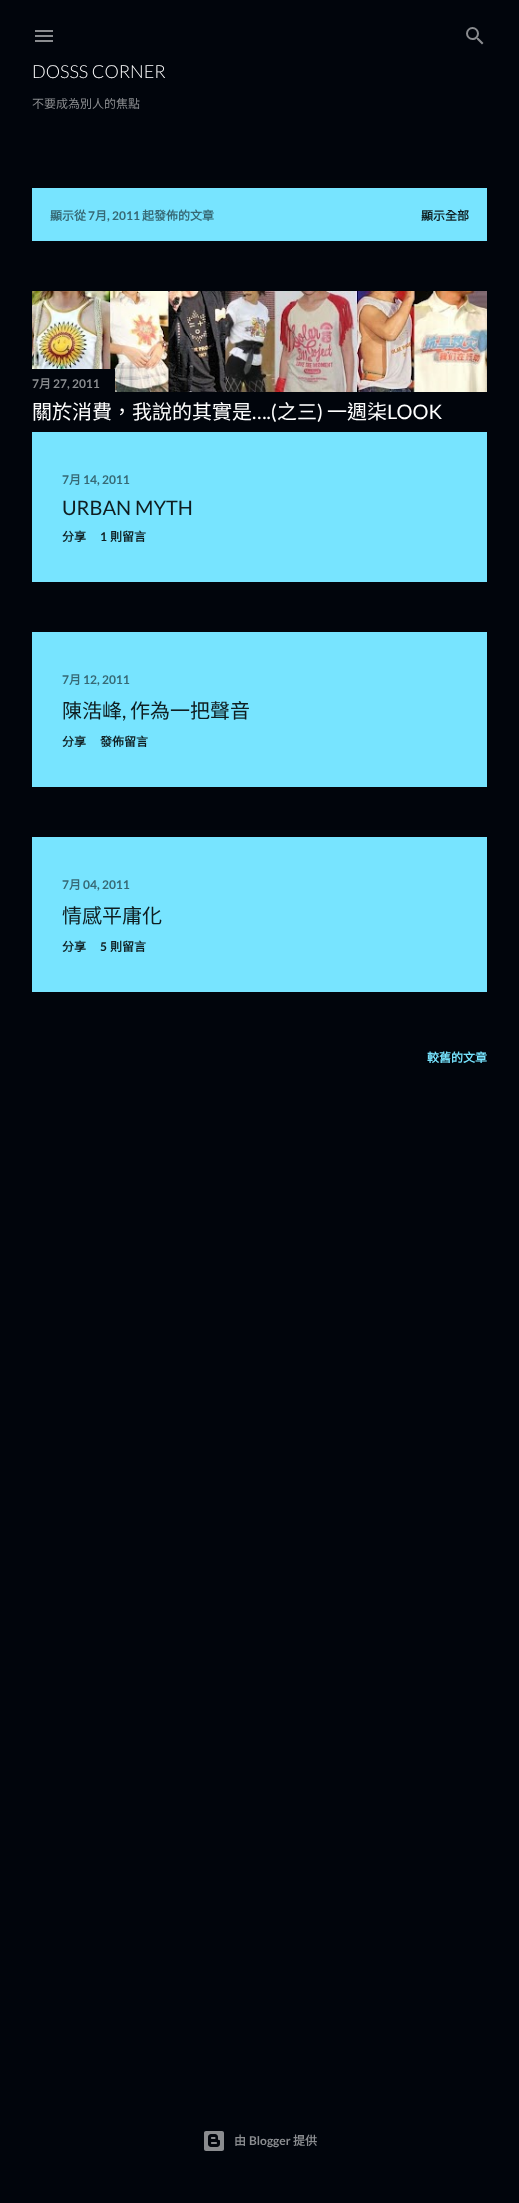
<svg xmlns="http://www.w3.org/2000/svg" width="519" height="2203">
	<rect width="100%" height="100%" fill="#01050C" />
	<image x="35" y="30" width="18" height="12" href="assets/img1.png" />
	<image x="466" y="27" width="18" height="18" href="assets/img2.png" />
	<text x="32" y="78" font-family="Lato" font-size="18" font-weight="300" fill="#FFFFFF">DOSSS CORNER</text>
	<text x="32" y="108" font-family="Noto Sans CJK HK" font-size="12" fill="#8A8C8F">不要成為別人的焦點</text>
	<rect x="32" y="188" width="455" height="53" fill="#77E4FF" />
	<text x="50" y="220" font-family="Noto Sans CJK HK" font-size="12" font-weight="700" fill="#376975">顯示從</text>
	<text x="88" y="220" font-family="Lato" font-size="12" font-weight="700" fill="#376975">7</text>
	<text x="95" y="220" font-family="Noto Sans CJK HK" font-size="12" font-weight="700" fill="#376975">月</text>
	<text x="107" y="220" font-family="Lato" font-size="12" font-weight="700" fill="#376975">, 2011</text>
	<text x="142" y="220" font-family="Noto Sans CJK HK" font-size="12" font-weight="700" fill="#376975">起發佈的文章</text>
	<text x="421" y="220" font-family="Noto Sans CJK HK" font-size="12" font-weight="700" fill="#0F1E21">顯示全部</text>
	<image x="32" y="291" width="455" height="101" href="assets/img3.png" />
	<rect x="32" y="369" width="83" height="23" fill="#01050C" />
	<text x="32" y="388" font-family="Lato" font-size="12" font-weight="700" fill="#8A8C8F">7</text>
	<text x="39" y="388" font-family="Noto Sans CJK HK" font-size="12" font-weight="700" fill="#8A8C8F">月</text>
	<text x="53" y="388" font-family="Lato" font-size="12" font-weight="700" fill="#8A8C8F">27, 2011</text>
	<text x="32" y="419" font-family="Noto Sans CJK HK" font-size="20" fill="#FFFFFF">關於消費，我說的其實是</text>
	<text x="252" y="419" font-family="Lato" font-size="20" fill="#FFFFFF">….(</text>
	<text x="277" y="419" font-family="Noto Sans CJK HK" font-size="20" fill="#FFFFFF">之三</text>
	<text x="317" y="419" font-family="Lato" font-size="20" fill="#FFFFFF">)</text>
	<text x="327" y="419" font-family="Noto Sans CJK HK" font-size="20" fill="#FFFFFF">一週柒</text>
	<text x="387" y="419" font-family="Lato" font-size="20" fill="#FFFFFF">LOOK</text>
	<rect x="32" y="432" width="455" height="150" fill="#77E4FF" />
	<text x="62" y="484" font-family="Lato" font-size="12" font-weight="700" fill="#376975">7</text>
	<text x="69" y="484" font-family="Noto Sans CJK HK" font-size="12" font-weight="700" fill="#376975">月</text>
	<text x="83" y="484" font-family="Lato" font-size="12" font-weight="700" fill="#376975">14, 2011</text>
	<text x="62" y="515" font-family="Lato" font-size="20" fill="#0F1E21">URBAN MYTH</text>
	<text x="62" y="541" font-family="Noto Sans CJK HK" font-size="12" font-weight="700" fill="#0F1E21">分享</text>
	<text x="100" y="541" font-family="Lato" font-size="12" font-weight="700" fill="#0F1E21">1</text>
	<text x="110" y="541" font-family="Noto Sans CJK HK" font-size="12" font-weight="700" fill="#0F1E21">則留言</text>
	<rect x="32" y="632" width="455" height="155" fill="#77E4FF" />
	<text x="62" y="684" font-family="Lato" font-size="12" font-weight="700" fill="#376975">7</text>
	<text x="69" y="684" font-family="Noto Sans CJK HK" font-size="12" font-weight="700" fill="#376975">月</text>
	<text x="83" y="684" font-family="Lato" font-size="12" font-weight="700" fill="#376975">12, 2011</text>
	<text x="62" y="718" font-family="Noto Sans CJK HK" font-size="20" fill="#0F1E21">陳浩峰</text>
	<text x="122" y="718" font-family="Lato" font-size="20" fill="#0F1E21">,</text>
	<text x="130" y="718" font-family="Noto Sans CJK HK" font-size="20" fill="#0F1E21">作為一把聲音</text>
	<g font-family="Noto Sans CJK HK" font-size="12" font-weight="700" fill="#0F1E21">
		<text x="62" y="746">分享</text>
		<text x="100" y="746">發佈留言</text>
	</g>
	<rect x="32" y="837" width="455" height="155" fill="#77E4FF" />
	<text x="62" y="889" font-family="Lato" font-size="12" font-weight="700" fill="#376975">7</text>
	<text x="69" y="889" font-family="Noto Sans CJK HK" font-size="12" font-weight="700" fill="#376975">月</text>
	<text x="83" y="889" font-family="Lato" font-size="12" font-weight="700" fill="#376975">04, 2011</text>
	<text x="62" y="923" font-family="Noto Sans CJK HK" font-size="20" fill="#0F1E21">情感平庸化</text>
	<text x="62" y="951" font-family="Noto Sans CJK HK" font-size="12" font-weight="700" fill="#0F1E21">分享</text>
	<text x="100" y="951" font-family="Lato" font-size="12" font-weight="700" fill="#0F1E21">5</text>
	<text x="110" y="951" font-family="Noto Sans CJK HK" font-size="12" font-weight="700" fill="#0F1E21">則留言</text>
	<text x="427" y="1062" font-family="Noto Sans CJK HK" font-size="12" font-weight="700" fill="#77E4FF">較舊的文章</text>
	<image x="204" y="2131" width="20" height="20" href="assets/img4.png" />
	<text x="234" y="2145" font-family="Noto Sans CJK HK" font-size="12" font-weight="700" fill="#8A8C8F">由</text>
	<text x="249" y="2145" font-family="Lato" font-size="12" font-weight="700" fill="#8A8C8F">Blogger</text>
	<text x="293" y="2145" font-family="Noto Sans CJK HK" font-size="12" font-weight="700" fill="#8A8C8F">提供</text>
</svg>
